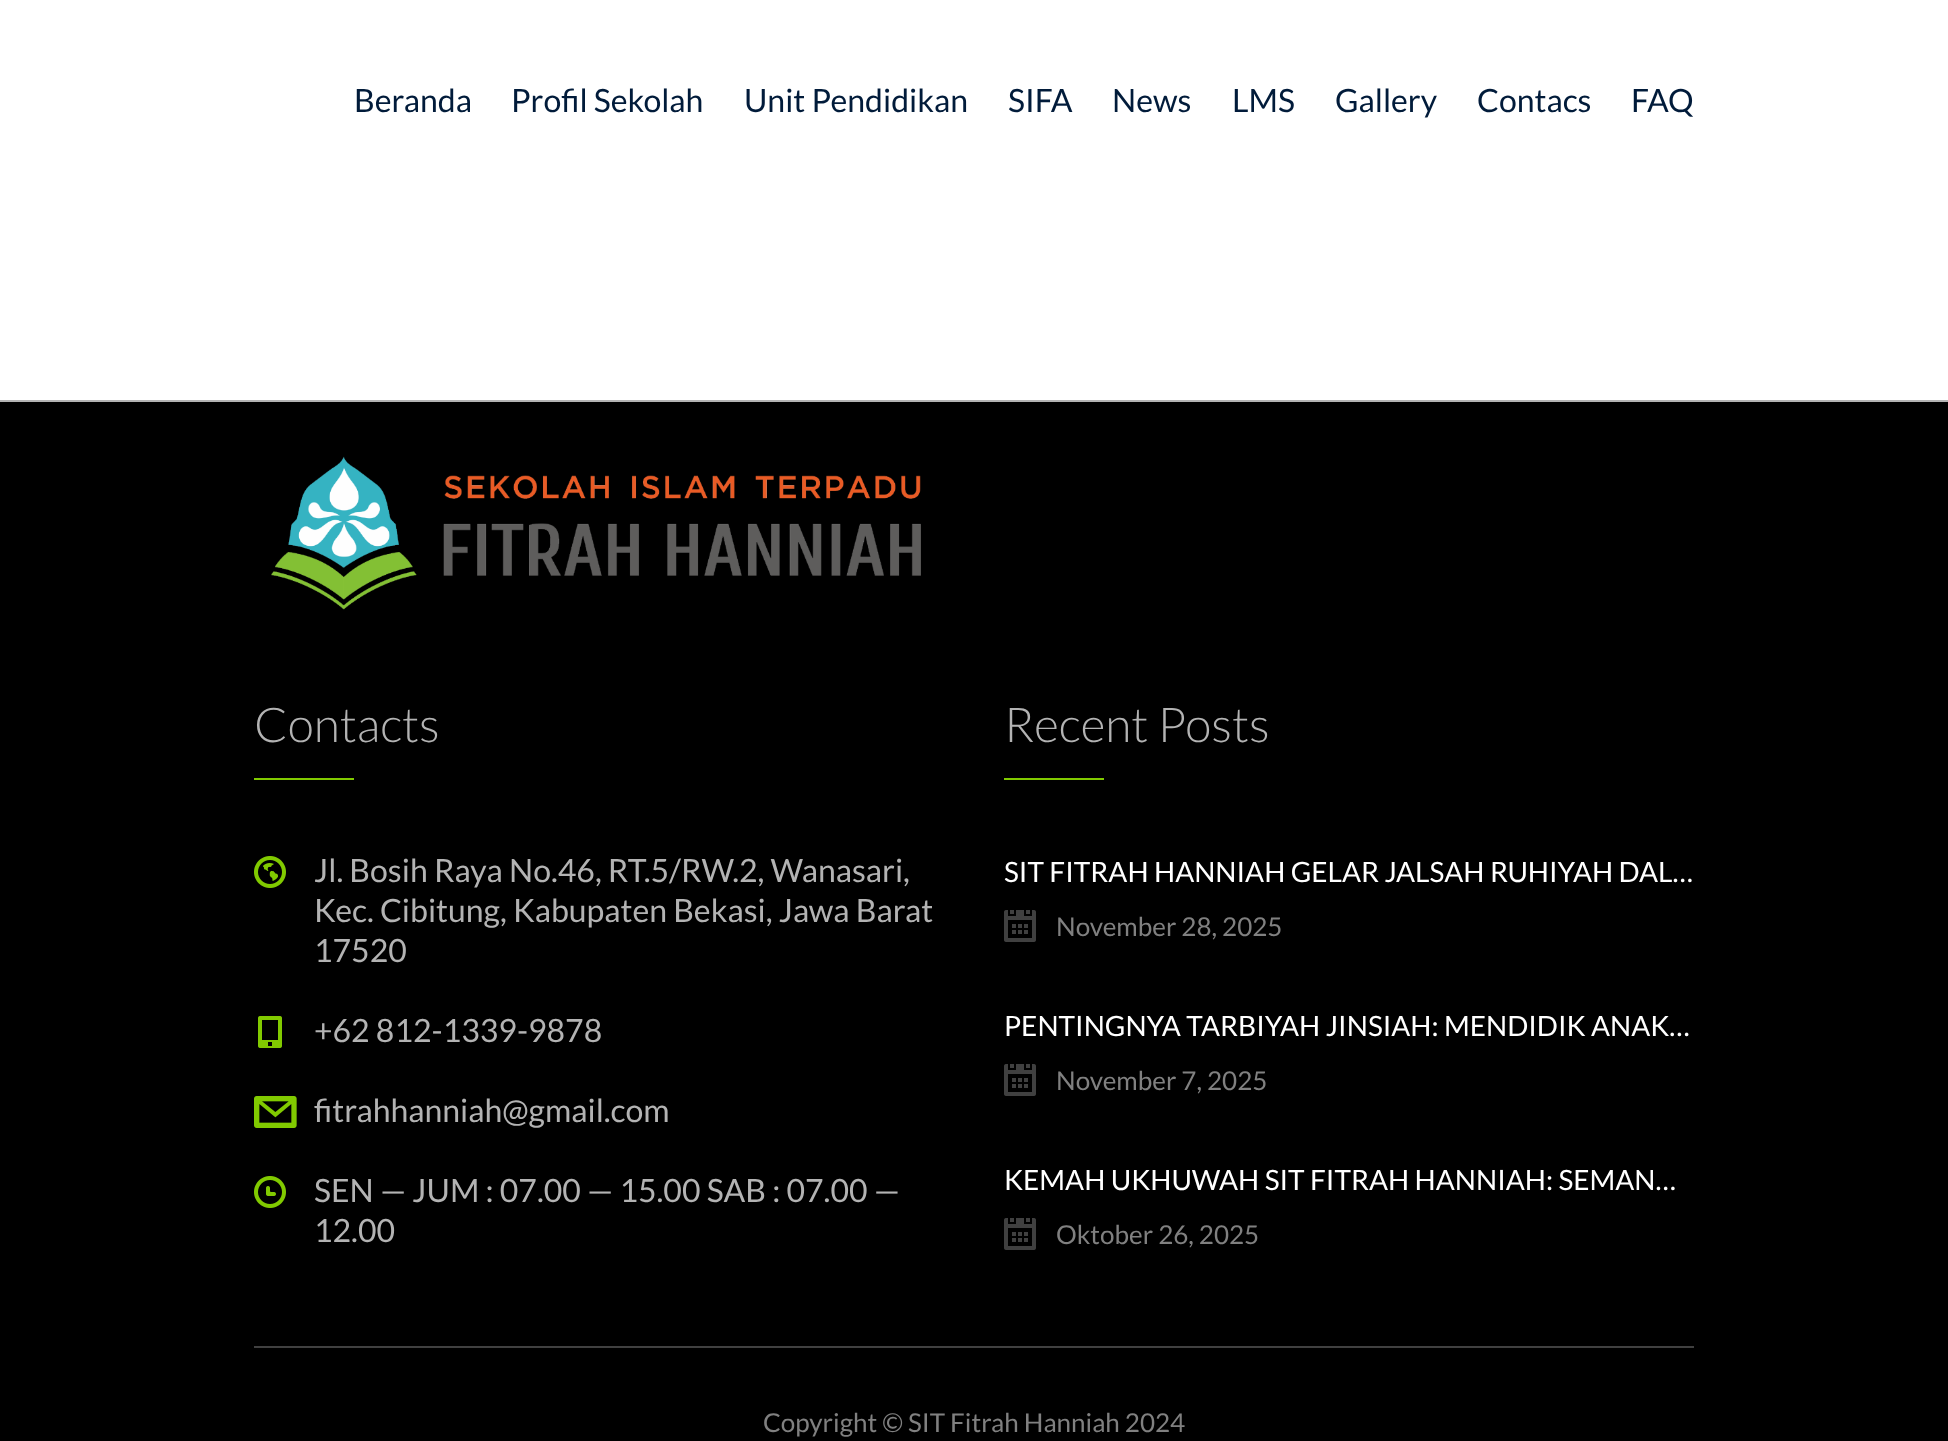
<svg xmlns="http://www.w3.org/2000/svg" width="1948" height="1441">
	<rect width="100%" height="100%" fill="#000000" />
	<rect x="0" y="0" width="1948" height="400" fill="#FFFFFF" />
	<rect x="0" y="400" width="1948" height="2" fill="#B3B3B3" />
	<g font-family="Lato" font-size="32" fill="#011B3A">
		<text x="354" y="112">Beranda</text>
		<text x="511" y="112">Profil Sekolah</text>
		<text x="744" y="112">Unit Pendidikan</text>
		<text x="1008" y="112">SIFA</text>
		<text x="1112" y="112">News</text>
		<text x="1232" y="112">LMS</text>
		<text x="1335" y="112">Gallery</text>
		<text x="1477" y="112">Contacs</text>
		<text x="1631" y="112">FAQ</text>
	</g>
	<rect x="254" y="1346" width="1440" height="2" fill="#404040" />
	<image x="271" y="456" width="650" height="154" href="assets/img1.png" />
	<text x="254" y="742" font-family="Lato" font-size="48" font-weight="300" fill="#B3B3B3">Contacts</text>
	<rect x="254" y="778" width="100" height="2" fill="#81CA00" />
	<image x="254" y="856" width="32" height="32" href="assets/img2.png" />
	<g font-family="Lato" font-size="32" fill="#B3B3B3">
		<text x="314" y="882">Jl. Bosih Raya No.46, RT.5/RW.2, Wanasari,</text>
		<text x="314" y="922">Kec. Cibitung, Kabupaten Bekasi, Jawa Barat</text>
		<text x="314" y="962">17520</text>
	</g>
	<image x="258" y="1016" width="24" height="32" href="assets/img3.png" />
	<text x="314" y="1042" font-family="Lato" font-size="32" fill="#B3B3B3">+62 812-1339-9878</text>
	<image x="254" y="1096" width="43" height="32" href="assets/img4.png" />
	<text x="314" y="1122" font-family="Lato" font-size="32" fill="#B3B3B3">fitrahhanniah@gmail.com</text>
	<image x="254" y="1176" width="32" height="32" href="assets/img5.png" />
	<g font-family="Lato" font-size="32" fill="#B3B3B3">
		<text x="314" y="1202">SEN — JUM : 07.00 — 15.00 SAB : 07.00 —</text>
		<text x="314" y="1242">12.00</text>
	</g>
	<text x="1004" y="742" font-family="Lato" font-size="48" font-weight="300" fill="#B3B3B3">Recent Posts</text>
	<rect x="1004" y="778" width="100" height="2" fill="#81CA00" />
	<text x="1004" y="882" font-family="Lato" font-size="28" fill="#FFFFFF">SIT FITRAH HANNIAH GELAR JALSAH RUHIYAH DAL…</text>
	<image x="1004" y="910" width="32" height="32" href="assets/img6.png" />
	<text x="1056" y="936" font-family="Lato" font-size="26" fill="#808080">November 28, 2025</text>
	<text x="1004" y="1036" font-family="Lato" font-size="28" fill="#FFFFFF">PENTINGNYA TARBIYAH JINSIAH: MENDIDIK ANAK…</text>
	<image x="1004" y="1064" width="32" height="32" href="assets/img6.png" />
	<text x="1056" y="1090" font-family="Lato" font-size="26" fill="#808080">November 7, 2025</text>
	<text x="1004" y="1190" font-family="Lato" font-size="28" fill="#FFFFFF">KEMAH UKHUWAH SIT FITRAH HANNIAH: SEMAN…</text>
	<image x="1004" y="1218" width="32" height="32" href="assets/img6.png" />
	<g font-family="Lato" font-size="26" fill="#808080">
		<text x="1056" y="1244">Oktober 26, 2025</text>
		<text x="763" y="1432">Copyright © SIT Fitrah Hanniah 2024</text>
	</g>
</svg>
